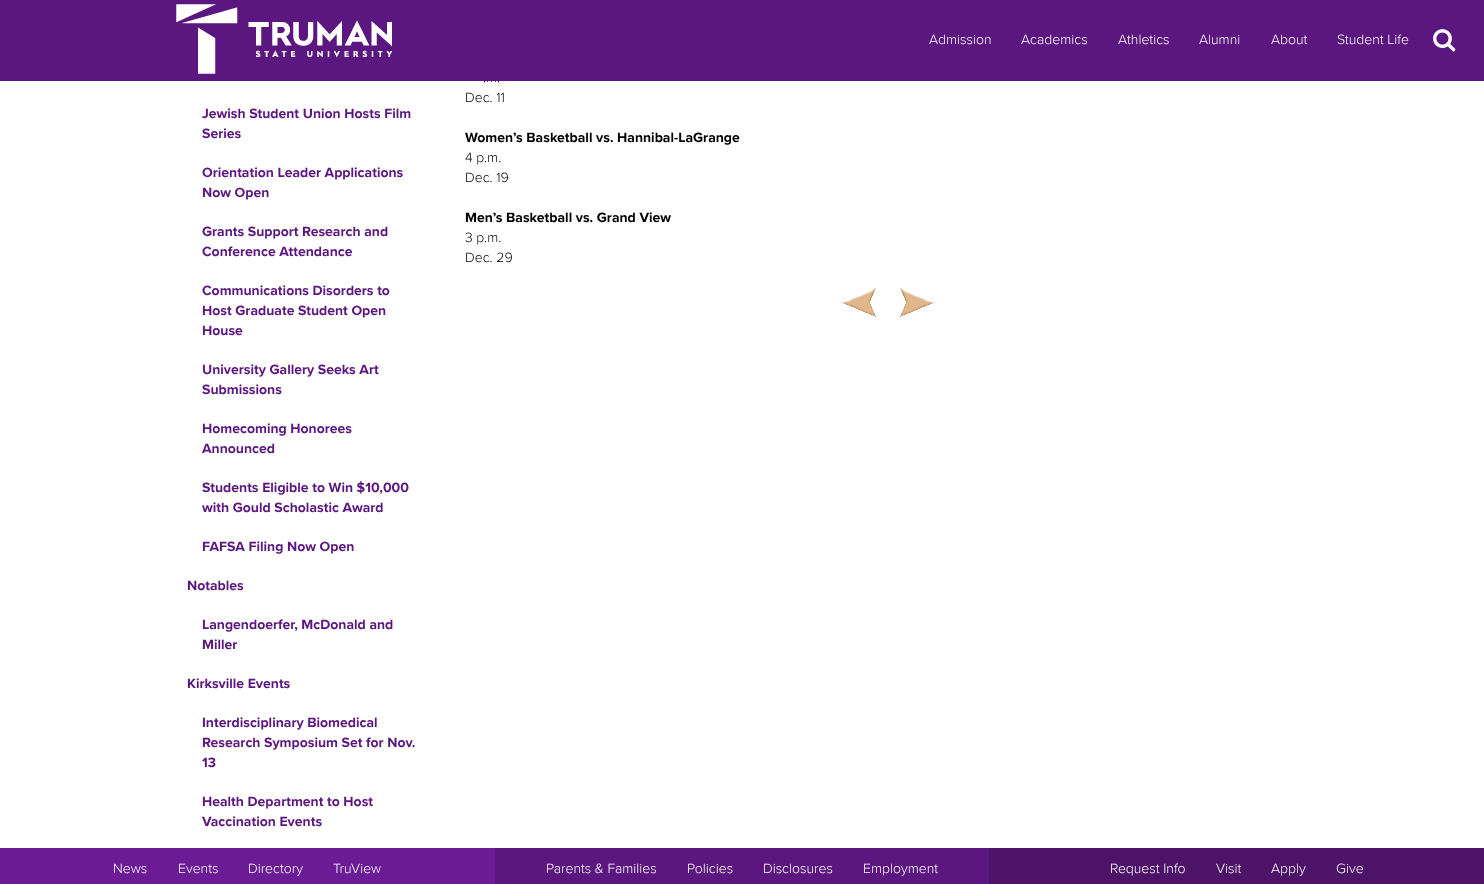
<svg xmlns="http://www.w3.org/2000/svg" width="1484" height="884">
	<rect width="100%" height="100%" fill="#FFFFFF" />
	<text x="483" y="82" font-family="Proxima Nova" font-size="14" font-weight="300" fill="#000000">.m.</text>
	<rect x="0" y="0" width="1484" height="81" fill="#5B177F" />
	<image x="176" y="4" width="216" height="70" href="assets/img1.png" />
	<g font-family="Proxima Nova" font-size="14" font-weight="300" fill="#FFFFFF">
		<text x="929" y="44">Admission</text>
		<text x="1021" y="44">Academics</text>
		<text x="1118" y="44">Athletics</text>
		<text x="1199" y="44">Alumni</text>
		<text x="1271" y="44">About</text>
		<text x="1337" y="44">Student Life</text>
	</g>
	<image x="1433" y="29" width="23" height="23" href="assets/img2.png" />
	<g font-family="Proxima Nova" font-size="14" font-weight="700" fill="#5B177F">
		<text x="202" y="118">Jewish Student Union Hosts Film</text>
		<text x="202" y="138">Series</text>
		<text x="202" y="177">Orientation Leader Applications</text>
		<text x="202" y="197">Now Open</text>
		<text x="202" y="236">Grants Support Research and</text>
		<text x="202" y="256">Conference Attendance</text>
		<text x="202" y="295">Communications Disorders to</text>
		<text x="202" y="315">Host Graduate Student Open</text>
		<text x="202" y="335">House</text>
		<text x="202" y="374">University Gallery Seeks Art</text>
		<text x="202" y="394">Submissions</text>
		<text x="202" y="433">Homecoming Honorees</text>
		<text x="202" y="453">Announced</text>
		<text x="202" y="492">Students Eligible to Win $10,000</text>
		<text x="202" y="512">with Gould Scholastic Award</text>
		<text x="202" y="551">FAFSA Filing Now Open</text>
		<text x="187" y="590">Notables</text>
		<text x="202" y="629">Langendoerfer, McDonald and</text>
		<text x="202" y="649">Miller</text>
		<text x="187" y="688">Kirksville Events</text>
		<text x="202" y="727">Interdisciplinary Biomedical</text>
		<text x="202" y="747">Research Symposium Set for Nov.</text>
		<text x="202" y="767">13</text>
		<text x="202" y="806">Health Department to Host</text>
		<text x="202" y="826">Vaccination Events</text>
	</g>
	<text x="465" y="102" font-family="Proxima Nova" font-size="14" font-weight="300" fill="#000000">Dec. 11</text>
	<text x="465" y="142" font-family="Proxima Nova" font-size="14" font-weight="700" fill="#000000">Women’s Basketball vs. Hannibal-LaGrange</text>
	<g font-family="Proxima Nova" font-size="14" font-weight="300" fill="#000000">
		<text x="465" y="162">4 p.m.</text>
		<text x="465" y="182">Dec. 19</text>
	</g>
	<text x="465" y="222" font-family="Proxima Nova" font-size="14" font-weight="700" fill="#000000">Men’s Basketball vs. Grand View</text>
	<g font-family="Proxima Nova" font-size="14" font-weight="300" fill="#000000">
		<text x="465" y="242">3 p.m.</text>
		<text x="465" y="262">Dec. 29</text>
	</g>
	<image x="842" y="288" width="34" height="29" href="assets/img3.png" />
	<image x="900" y="288" width="34" height="29" href="assets/img4.png" />
	<rect x="0" y="848" width="495" height="36" fill="#6A1B95" />
	<g font-family="Proxima Nova" font-size="14" font-weight="300" fill="#FFFFFF">
		<text x="113" y="873">News</text>
		<text x="178" y="873">Events</text>
		<text x="248" y="873">Directory</text>
		<text x="333" y="873">TruView</text>
	</g>
	<rect x="495" y="848" width="494" height="36" fill="#5B177F" />
	<g font-family="Proxima Nova" font-size="14" font-weight="300" fill="#FFFFFF">
		<text x="546" y="873">Parents &amp; Families</text>
		<text x="687" y="873">Policies</text>
		<text x="763" y="873">Disclosures</text>
		<text x="863" y="873">Employment</text>
	</g>
	<rect x="989" y="848" width="495" height="36" fill="#4C1369" />
	<g font-family="Proxima Nova" font-size="14" font-weight="300" fill="#FFFFFF">
		<text x="1110" y="873">Request Info</text>
		<text x="1216" y="873">Visit</text>
		<text x="1271" y="873">Apply</text>
		<text x="1336" y="873">Give</text>
	</g>
</svg>
